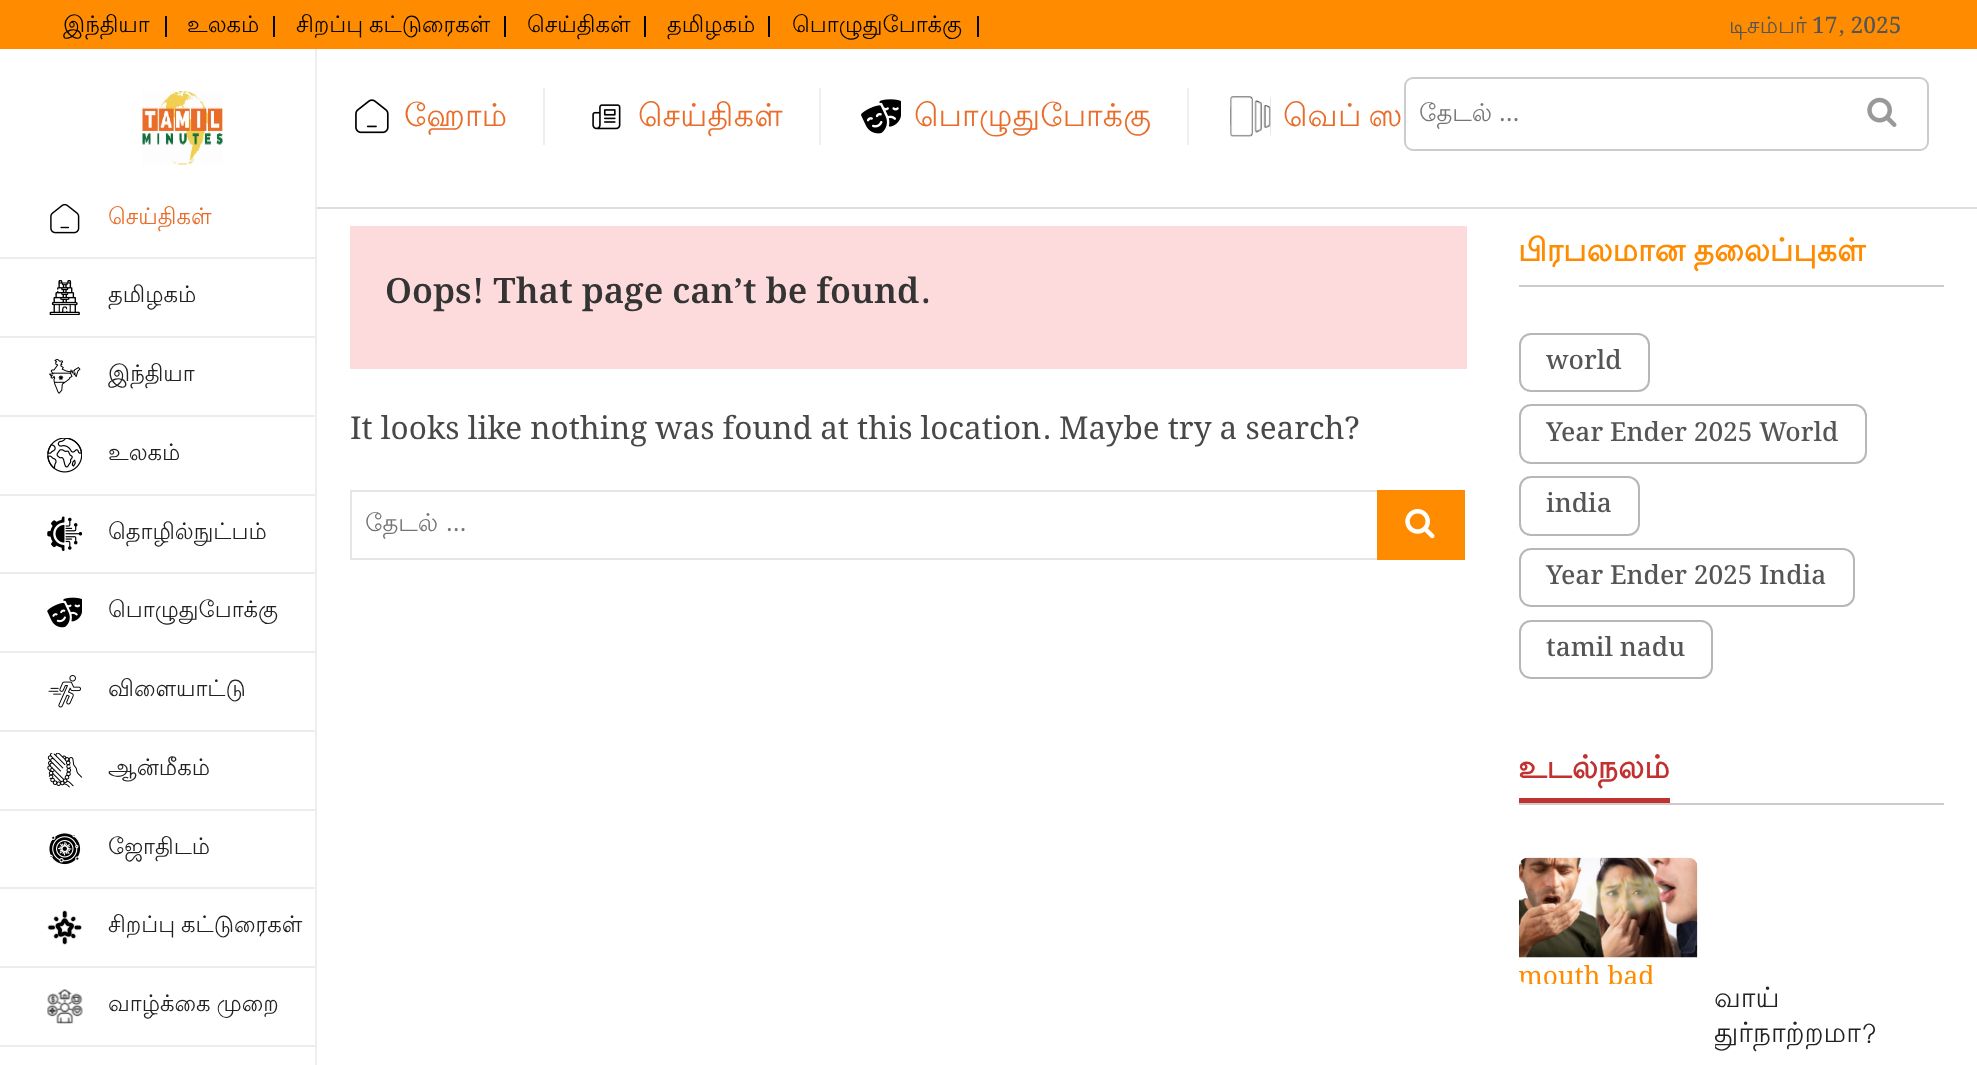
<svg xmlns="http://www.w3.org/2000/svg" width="1977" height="1065">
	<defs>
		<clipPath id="clip1"><rect x="1519" y="858" width="179" height="126" rx="9" /></clipPath>
		<clipPath id="clip2"><rect x="1715" y="984" width="229" height="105" /></clipPath>
	</defs>
	<rect width="100%" height="100%" fill="#FFFFFF" />
	<rect x="0" y="0" width="1977" height="49" fill="#FF8C00" />
	<rect x="165" y="16" width="2" height="21" fill="#000000" />
	<text x="63" y="32" font-family="Lohit Tamil" font-size="22.75" fill="#000000">இந்தியா</text>
	<rect x="273" y="16" width="2" height="21" fill="#000000" />
	<text x="187" y="32" font-family="Lohit Tamil" font-size="22.75" fill="#000000">உலகம்</text>
	<rect x="504" y="16" width="2" height="21" fill="#000000" />
	<text x="296" y="32" word-spacing="-1" font-family="Lohit Tamil" font-size="22.75" fill="#000000">சிறப்பு கட்டுரைகள்</text>
	<rect x="644" y="16" width="2" height="21" fill="#000000" />
	<text x="527" y="32" font-family="Lohit Tamil" font-size="22.75" fill="#000000">செய்திகள்</text>
	<rect x="768" y="16" width="2" height="21" fill="#000000" />
	<text x="667" y="32" font-family="Lohit Tamil" font-size="22.75" fill="#000000">தமிழகம்</text>
	<rect x="977" y="16" width="2" height="21" fill="#000000" />
	<text x="792" y="32" font-family="Lohit Tamil" font-size="22.75" fill="#000000">பொழுதுபோக்கு</text>
	<text x="1729" y="33" font-family="Lohit Tamil" font-size="22.75" fill="#555555">டிசம்பர்</text>
	<text x="1812" y="33" font-family="Noto Serif Bengali" font-size="22.75" font-weight="500" fill="#555555">17, 2025</text>
	<rect x="317" y="207" width="1660" height="2" fill="#DDDDDD" />
	<rect x="315" y="49" width="2" height="1016" fill="#EEEEEE" />
	<image x="142" y="91" width="81" height="74" href="assets/img1.png" />
	<rect x="543" y="88" width="2" height="57" fill="#EEEEEE" />
	<image x="355" y="99" width="34" height="35" href="assets/img2.png" />
	<text x="404" y="126" font-family="Lohit Tamil" font-size="31.5" letter-spacing="0.3" fill="#E96C29">ஹோம்</text>
	<rect x="819" y="88" width="2" height="57" fill="#EEEEEE" />
	<image x="592" y="104" width="29" height="26" href="assets/img3.png" />
	<text x="638" y="126" font-family="Lohit Tamil" font-size="31.5" letter-spacing="0.3" fill="#E96C29">செய்திகள்</text>
	<rect x="1187" y="88" width="2" height="57" fill="#EEEEEE" />
	<image x="861" y="99" width="40" height="35" href="assets/img4.png" />
	<text x="914" y="126" font-family="Lohit Tamil" font-size="31.5" letter-spacing="0.3" fill="#E96C29">பொழுதுபோக்கு</text>
	<image x="1230" y="96" width="41" height="41" href="assets/img5.png" />
	<text x="1283" y="126" word-spacing="-3" font-family="Lohit Tamil" font-size="31.5" letter-spacing="0.3" fill="#E96C29">வெப் ஸ</text>
	<rect x="1405" y="78" width="523" height="72" rx="8" fill="none" stroke="#CCCCCC" stroke-width="2" />
	<text x="1419" y="121" font-family="Lohit Tamil" font-size="24.5" fill="#757575">தேடல்</text>
	<text x="1498" y="121" font-family="Noto Serif Bengali" font-size="24.5" fill="#757575">…</text>
	<image x="1867" y="97" width="30" height="30" href="assets/img6.png" />
	<rect x="0" y="257" width="315" height="2" fill="#EDEDED" />
	<image x="50" y="203" width="30" height="31" href="assets/img7.png" />
	<text x="108" y="224" font-family="Lohit Tamil" font-size="22.75" fill="#E96C29">செய்திகள்</text>
	<rect x="0" y="336" width="315" height="2" fill="#EDEDED" />
	<image x="49" y="280" width="31" height="35" href="assets/img8.png" />
	<text x="108" y="302" font-family="Lohit Tamil" font-size="22.75" fill="#222222">தமிழகம்</text>
	<rect x="0" y="415" width="315" height="2" fill="#EDEDED" />
	<image x="49" y="359" width="32" height="35" href="assets/img9.png" />
	<text x="108" y="381" font-family="Lohit Tamil" font-size="22.75" fill="#222222">இந்தியா</text>
	<rect x="0" y="494" width="315" height="2" fill="#EDEDED" />
	<image x="47" y="438" width="35" height="35" href="assets/img10.png" />
	<text x="108" y="460" font-family="Lohit Tamil" font-size="22.75" fill="#222222">உலகம்</text>
	<rect x="0" y="572" width="315" height="2" fill="#EDEDED" />
	<image x="47" y="516" width="35" height="35" href="assets/img11.png" />
	<text x="108" y="539" font-family="Lohit Tamil" font-size="22.75" fill="#222222">தொழில்நுட்பம்</text>
	<rect x="0" y="651" width="315" height="2" fill="#EDEDED" />
	<image x="47" y="597" width="35" height="31" href="assets/img12.png" />
	<text x="108" y="617" font-family="Lohit Tamil" font-size="22.75" fill="#222222">பொழுதுபோக்கு</text>
	<rect x="0" y="730" width="315" height="2" fill="#EDEDED" />
	<image x="48" y="675" width="33" height="33" href="assets/img13.png" />
	<text x="108" y="696" font-family="Lohit Tamil" font-size="22.75" fill="#222222">விளையாட்டு</text>
	<rect x="0" y="809" width="315" height="2" fill="#EDEDED" />
	<image x="47" y="753" width="35" height="35" href="assets/img14.png" />
	<text x="108" y="775" font-family="Lohit Tamil" font-size="22.75" fill="#222222">ஆன்மீகம்</text>
	<rect x="0" y="887" width="315" height="2" fill="#EDEDED" />
	<image x="49" y="833" width="32" height="32" href="assets/img15.png" />
	<text x="108" y="854" font-family="Lohit Tamil" font-size="22.75" fill="#222222">ஜோதிடம்</text>
	<rect x="0" y="966" width="315" height="2" fill="#EDEDED" />
	<image x="47" y="910" width="35" height="35" href="assets/img16.png" />
	<text x="108" y="932" word-spacing="-1" font-family="Lohit Tamil" font-size="22.75" fill="#222222">சிறப்பு கட்டுரைகள்</text>
	<rect x="0" y="1045" width="315" height="2" fill="#EDEDED" />
	<image x="47" y="989" width="36" height="35" href="assets/img17.png" />
	<text x="108" y="1011" word-spacing="-1" font-family="Lohit Tamil" font-size="22.75" fill="#222222">வாழ்க்கை முறை</text>
	<rect x="350" y="226" width="1117" height="143" fill="#FDDBDD" />
	<text x="385" y="303" font-family="Noto Serif Bengali" font-size="35" font-weight="600" fill="#343434">Oops! That page can’t be found.</text>
	<text x="350" y="439" font-family="Noto Serif Bengali" font-size="31.5" fill="#484848">It looks like nothing was found at this location. Maybe try a search?</text>
	<rect x="351" y="491" width="1027" height="68" fill="none" stroke="#E6E6E6" stroke-width="2" />
	<text x="365" y="531" font-family="Lohit Tamil" font-size="24.5" fill="#757575">தேடல்</text>
	<text x="445" y="531" font-family="Noto Serif Bengali" font-size="24.5" fill="#757575">…</text>
	<rect x="1377" y="490" width="88" height="70" fill="#FF8C00" />
	<image x="1405" y="509" width="30" height="30" href="assets/img18.png" />
	<text x="1518" y="261" word-spacing="-1" font-family="Lohit Tamil" font-size="31.5" font-weight="700" fill="#FF8C00">பிரபலமான தலைப்புகள்</text>
	<rect x="1519" y="285" width="425" height="2" fill="#CCCCCC" />
	<rect x="1520" y="334" width="129" height="57" rx="11" fill="none" stroke="#B7B7B7" stroke-width="2" />
	<text x="1546" y="369" font-family="Noto Serif Bengali" font-size="26.25" font-weight="500" fill="#555555">world</text>
	<rect x="1520" y="405" width="346" height="58" rx="11" fill="none" stroke="#B7B7B7" stroke-width="2" />
	<text x="1546" y="441" font-family="Noto Serif Bengali" font-size="26.25" font-weight="500" fill="#555555">Year Ender 2025 World</text>
	<rect x="1520" y="477" width="119" height="58" rx="11" fill="none" stroke="#B7B7B7" stroke-width="2" />
	<text x="1546" y="512" font-family="Noto Serif Bengali" font-size="26.25" font-weight="500" fill="#555555">india</text>
	<rect x="1520" y="549" width="334" height="57" rx="11" fill="none" stroke="#B7B7B7" stroke-width="2" />
	<text x="1546" y="584" font-family="Noto Serif Bengali" font-size="26.25" font-weight="500" fill="#555555">Year Ender 2025 India</text>
	<rect x="1520" y="621" width="192" height="57" rx="11" fill="none" stroke="#B7B7B7" stroke-width="2" />
	<text x="1546" y="656" font-family="Noto Serif Bengali" font-size="26.25" font-weight="500" fill="#555555">tamil nadu</text>
	<rect x="1519" y="798" width="151" height="5" fill="#C0312F" />
	<text x="1518" y="778" font-family="Lohit Tamil" font-size="31.5" font-weight="700" fill="#C0312F">உடல்நலம்</text>
	<rect x="1519" y="803" width="425" height="2" fill="#CCCCCC" />
	<image x="1519" y="857" width="179" height="101" href="assets/img19.png" />
	<g clip-path="url(#clip1)">
		<text x="1518" y="985" font-family="Noto Serif Bengali" font-size="26.25" fill="#FF8C00">mouth bad</text>
	</g>
	<text x="1714" y="1007" font-family="Lohit Tamil" font-size="28" fill="#222222">வாய்</text>
	<g clip-path="url(#clip2)">
		<text x="1714" y="1042" font-family="Lohit Tamil" font-size="28" fill="#222222">துர்நாற்றமா?</text>
	</g>
</svg>
